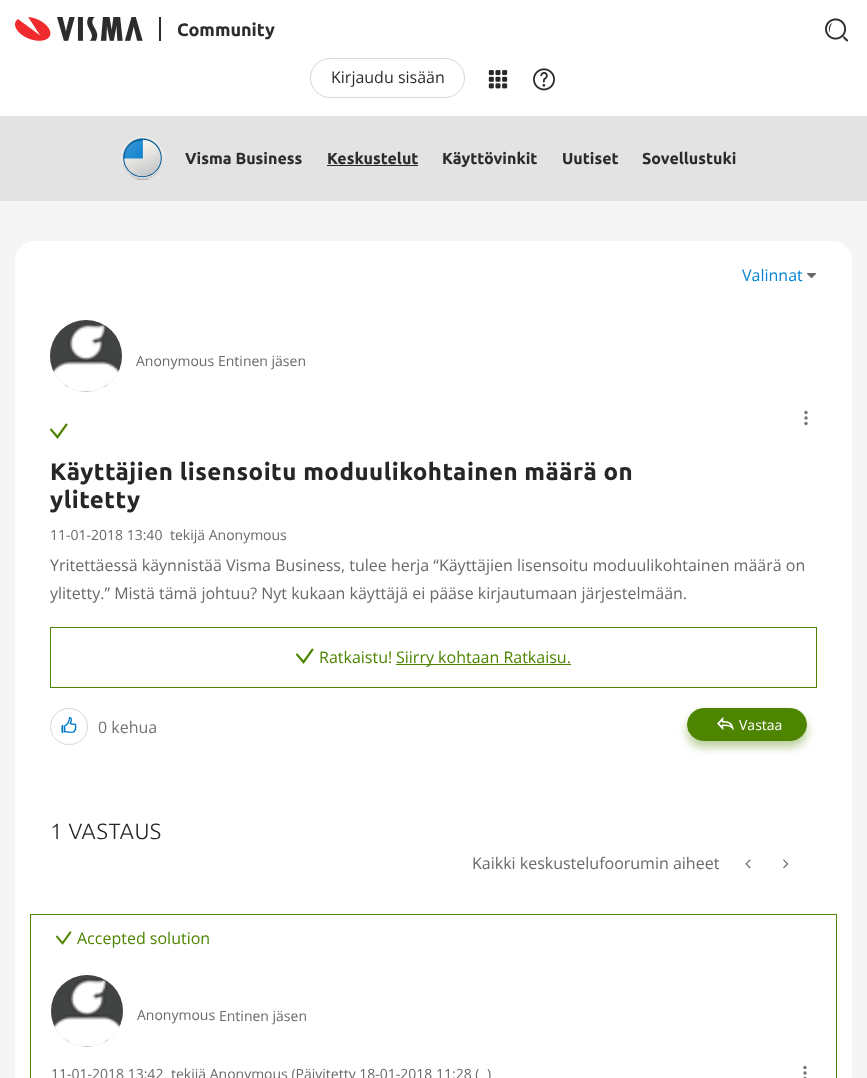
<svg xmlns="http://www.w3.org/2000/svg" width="867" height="1078">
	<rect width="100%" height="100%" fill="#F5F5F5" />
	<rect x="0" y="0" width="867" height="116" fill="#FFFFFF" />
	<image x="15" y="17" width="128" height="24" href="assets/img1.png" />
	<rect x="159" y="17" width="2" height="24" fill="#2C2C2C" />
	<text x="177" y="36" font-family="Ubuntu" font-size="18" font-weight="700" fill="#2C2C2C">Community</text>
	<image x="825" y="18" width="24" height="24" href="assets/img2.png" />
	<rect x="310.5" y="58.5" width="154" height="39" rx="19.5" fill="none" stroke="#D7D7D7" />
	<text x="331" y="83" font-family="Open Sans" font-size="16" fill="#2C2C2C">Kirjaudu sisään</text>
	<image x="488" y="70" width="20" height="19" href="assets/img3.png" />
	<image x="533" y="68" width="22" height="23" href="assets/img4.png" />
	<rect x="0" y="116" width="867" height="85" fill="#E3E3E3" />
	<image x="121" y="136" width="43" height="44" href="assets/img5.png" />
	<g font-family="Ubuntu" font-size="16" font-weight="700" fill="#2C2C2C">
		<text x="185" y="164">Visma Business</text>
		<text x="327" y="164">Keskustelut</text>
	</g>
	<rect x="327" y="165" width="91" height="1" fill="#282828" />
	<g font-family="Ubuntu" font-size="16" font-weight="700" fill="#2C2C2C">
		<text x="442" y="164">Käyttövinkit</text>
		<text x="562" y="164">Uutiset</text>
		<text x="642" y="164">Sovellustuki</text>
	</g>
	<rect x="15" y="241" width="837" height="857" rx="20" fill="#FFFFFF" />
	<text x="742" y="281" font-family="Open Sans" font-size="16" fill="#0285D0">Valinnat</text>
	<image x="807" y="273" width="10" height="6" href="assets/img6.png" />
	<rect x="50" y="320" width="72" height="72" rx="36" fill="#C4C4C4" filter="blur(0.5px)" />
	<image x="50" y="320" width="72" height="71" href="assets/img7.png" />
	<g font-family="Open Sans" font-size="14" fill="#696969">
		<text x="136" y="366">Anonymous</text>
		<text x="218" y="366">Entinen jäsen</text>
	</g>
	<circle cx="806" cy="412.5" r="1.7" fill="#747474" />
	<circle cx="806" cy="418" r="1.7" fill="#747474" />
	<circle cx="806" cy="423.5" r="1.7" fill="#747474" />
	<image x="50" y="423" width="18" height="16" href="assets/img8.png" />
	<g font-family="Ubuntu" font-size="24" font-weight="700" letter-spacing="0.5" fill="#252626">
		<text x="50" y="480">Käyttäjien lisensoitu moduulikohtainen määrä on</text>
		<text x="50" y="508">ylitetty</text>
	</g>
	<g font-family="Open Sans" font-size="14" fill="#696969">
		<text x="50" y="540">11-01-2018 13:40</text>
		<text x="170" y="540">tekijä Anonymous</text>
	</g>
	<g font-family="Open Sans" font-size="16" fill="#696969">
		<text x="50" y="571">Yritettäessä käynnistää Visma Business, tulee herja “Käyttäjien lisensoitu moduulikohtainen määrä on</text>
		<text x="50" y="599">ylitetty.” Mistä tämä johtuu? Nyt kukaan käyttäjä ei pääse kirjautumaan järjestelmään.</text>
	</g>
	<rect x="50.5" y="627.5" width="766" height="60" fill="none" stroke="#4D8400" />
	<image x="296" y="648" width="18" height="16" href="assets/img8.png" />
	<text x="319" y="663" font-family="Open Sans" font-size="16" fill="#4D8400">Ratkaistu!</text>
	<rect x="396" y="664" width="175" height="1" fill="#4D8400" />
	<text x="396" y="663" font-family="Open Sans" font-size="16" fill="#4D8400">Siirry kohtaan Ratkaisu.</text>
	<rect x="50.5" y="708.5" width="37" height="36" rx="18" fill="none" stroke="#D7D7D7" />
	<image x="61" y="717" width="16" height="16" href="assets/img9.png" />
	<text x="98" y="733" font-family="Open Sans" font-size="16" fill="#737373">0 kehua</text>
	<rect x="687" y="714" width="120" height="33" rx="16.5" fill="#4D8400" fill-opacity="0.4" filter="blur(5px)" />
	<rect x="687.5" y="708.5" width="119" height="32" rx="16" fill="#4D8400" stroke="#4D8400" />
	<image x="717" y="717" width="17" height="14" href="assets/img10.png" />
	<text x="739" y="730" font-family="Open Sans" font-size="14" fill="#FFFFFF">Vastaa</text>
	<text x="50" y="839" font-family="Ubuntu" font-size="22" font-weight="300" letter-spacing="0.5" fill="#252626">1 VASTAUS</text>
	<text x="472" y="869" font-family="Open Sans" font-size="16" fill="#696969">Kaikki keskustelufoorumin aiheet</text>
	<image x="745" y="859" width="6" height="10" href="assets/img11.png" />
	<image x="783" y="859" width="6" height="10" href="assets/img12.png" />
	<rect x="30.5" y="914.5" width="806" height="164" fill="none" stroke="#4D8400" />
	<image x="56" y="931" width="16" height="14" href="assets/img13.png" />
	<text x="77" y="944" font-family="Open Sans" font-size="16" fill="#4D8400">Accepted solution</text>
	<rect x="51" y="975" width="72" height="72" rx="36" fill="#C4C4C4" filter="blur(0.5px)" />
	<image x="51" y="975" width="72" height="71" href="assets/img7.png" />
	<g font-family="Open Sans" font-size="14" fill="#696969">
		<text x="137" y="1020">Anonymous</text>
		<text x="219" y="1021">Entinen jäsen</text>
		<text x="51" y="1079">11-01-2018 13:42</text>
		<text x="171" y="1079">tekijä Anonymous (Päivitetty 18-01-2018 11:28 (</text>
		<text x="487" y="1079">)</text>
	</g>
	<circle cx="805" cy="1067.5" r="1.7" fill="#747474" />
	<circle cx="805" cy="1073" r="1.7" fill="#747474" />
	<circle cx="805" cy="1078.5" r="1.7" fill="#747474" />
</svg>
